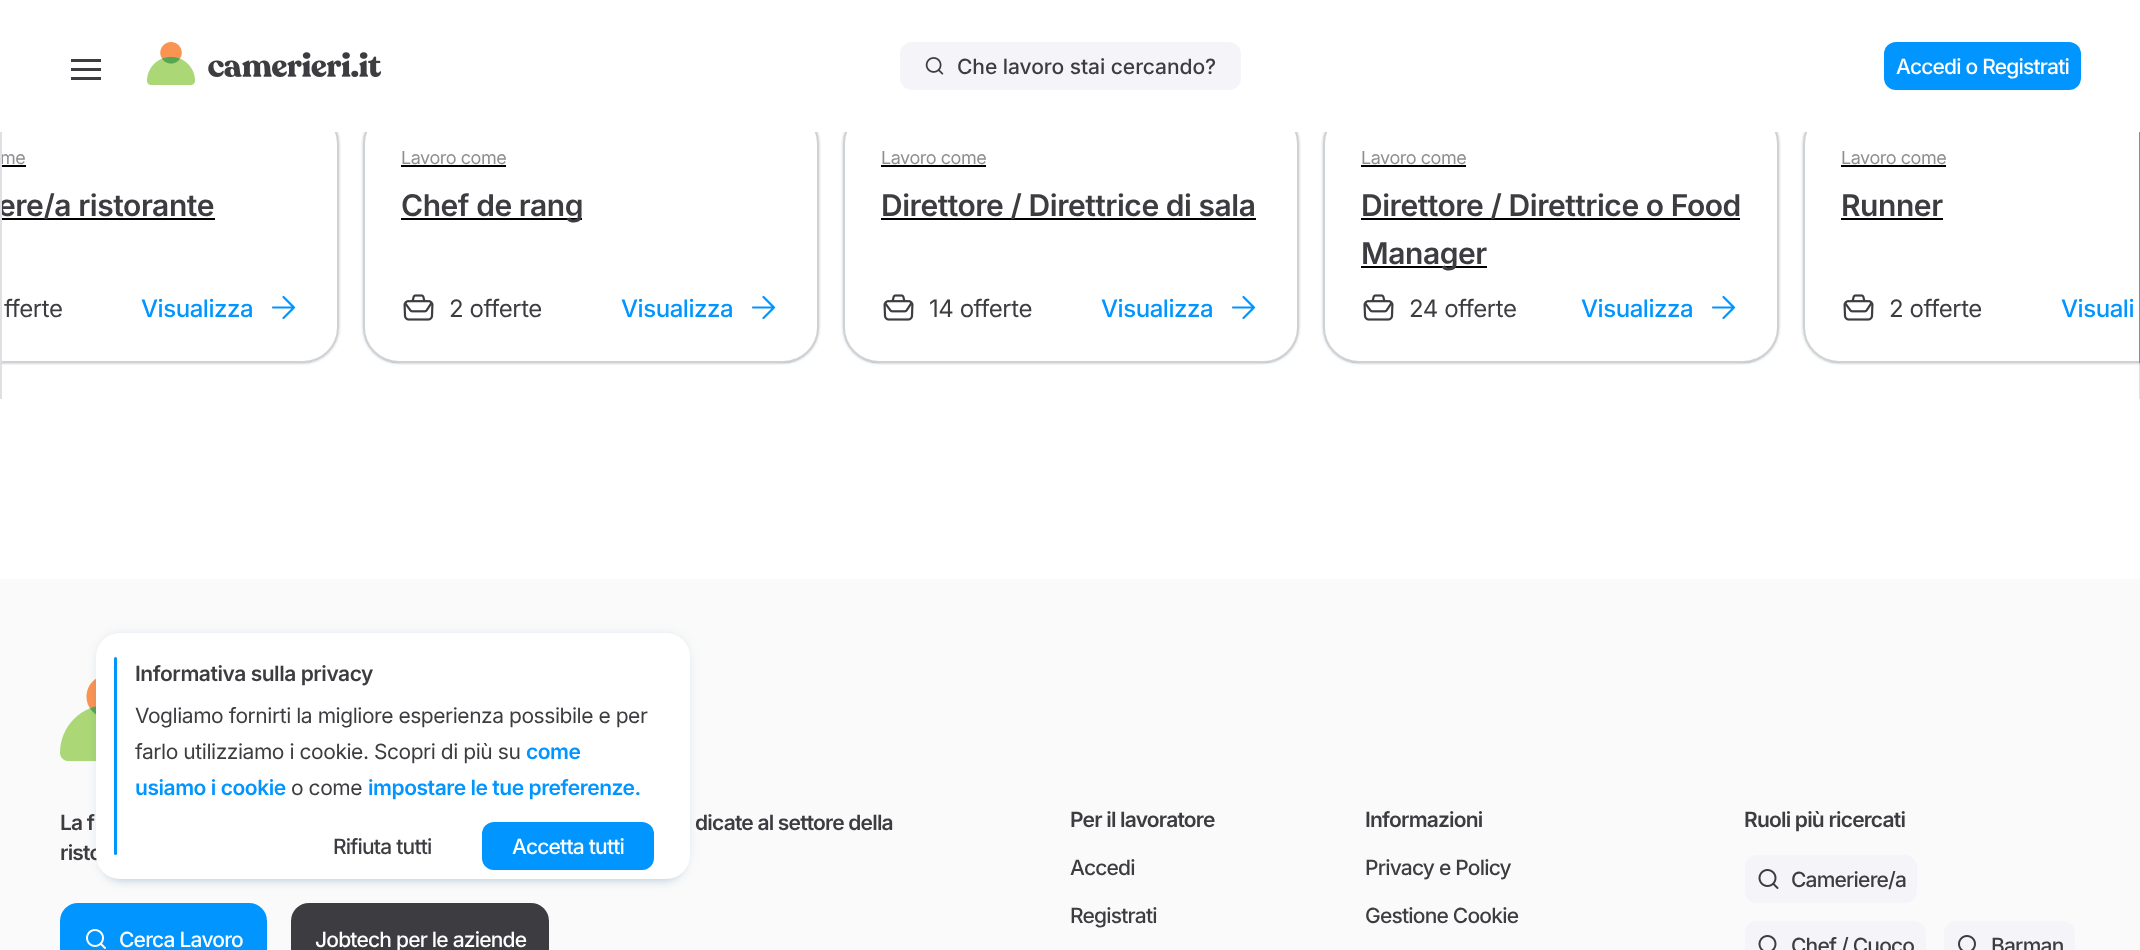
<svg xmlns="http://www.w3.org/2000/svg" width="2140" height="950">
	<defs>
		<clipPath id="clip1"><path d="M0 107H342V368H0ZM-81 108H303C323 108 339 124 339 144V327C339 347 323 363 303 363H-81C-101 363-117 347-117 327V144C-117 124-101 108-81 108Z" clip-rule="evenodd" /></clipPath>
		<clipPath id="clip2"><rect x="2" y="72" width="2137" height="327" /></clipPath>
		<clipPath id="clip3"><rect x="2" y="72" width="2137" height="327" /></clipPath>
	</defs>
	<rect width="100%" height="100%" fill="#FFFFFF" />
	<rect x="0" y="132" width="2" height="267" fill="#E0E0E4" />
	<g clip-path="url(#clip1)">
		<rect x="-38" y="113" width="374" height="249" rx="33" fill="#004B80" fill-opacity="0.32" filter="blur(1.5px)" />
	</g>
	<g clip-path="url(#clip2)">
		<rect x="-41" y="108" width="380" height="255" rx="36" fill="#004B80" fill-opacity="0.28" filter="blur(1.5px)" />
	</g>
	<path d="M2 108H303C323 108 339 124 339 144V327C339 347 323 363 303 363H2Z" fill="#FFFFFF" />
	<g clip-path="url(#clip3)">
		<rect x="-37" y="109" width="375" height="253" rx="35" fill="none" stroke="#000000" stroke-opacity="0.18" stroke-width="2" />
	</g>
	<rect x="366" y="113" width="450" height="249" rx="33" fill="#004B80" fill-opacity="0.32" filter="blur(1.5px)" />
	<rect x="363" y="108" width="456" height="255" rx="36" fill="#004B80" fill-opacity="0.28" filter="blur(1.5px)" />
	<rect x="363" y="108" width="456" height="255" rx="36" fill="#FFFFFF" />
	<rect x="364" y="109" width="454" height="253" rx="35" fill="none" stroke="#000000" stroke-opacity="0.18" stroke-width="2" />
	<rect x="846" y="113" width="450" height="249" rx="33" fill="#004B80" fill-opacity="0.32" filter="blur(1.5px)" />
	<rect x="843" y="108" width="456" height="255" rx="36" fill="#004B80" fill-opacity="0.28" filter="blur(1.5px)" />
	<rect x="843" y="108" width="456" height="255" rx="36" fill="#FFFFFF" />
	<rect x="844" y="109" width="454" height="253" rx="35" fill="none" stroke="#000000" stroke-opacity="0.18" stroke-width="2" />
	<rect x="1326" y="113" width="450" height="249" rx="33" fill="#004B80" fill-opacity="0.32" filter="blur(1.5px)" />
	<rect x="1323" y="108" width="456" height="255" rx="36" fill="#004B80" fill-opacity="0.28" filter="blur(1.5px)" />
	<rect x="1323" y="108" width="456" height="255" rx="36" fill="#FFFFFF" />
	<rect x="1324" y="109" width="454" height="253" rx="35" fill="none" stroke="#000000" stroke-opacity="0.18" stroke-width="2" />
	<rect x="2139" y="132" width="1" height="267" fill="#E0E0E4" />
	<rect x="1806" y="113" width="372" height="249" rx="33" fill="#004B80" fill-opacity="0.32" filter="blur(1.5px)" />
	<rect x="1803" y="108" width="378" height="255" rx="36" fill="#004B80" fill-opacity="0.28" filter="blur(1.5px)" />
	<path d="M1839 108H2139V363H1839C1819 363 1803 347 1803 327V144C1803 124 1819 108 1839 108Z" fill="#FFFFFF" />
	<rect x="1804" y="109" width="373" height="253" rx="35" fill="none" stroke="#000000" stroke-opacity="0.18" stroke-width="2" />
	<rect x="2" y="105" width="2138" height="27" fill="#FFFFFF" />
	<rect x="71" y="59" width="30" height="3" fill="#3D3D41" />
	<rect x="71" y="68" width="30" height="3" fill="#3D3D41" />
	<rect x="71" y="77" width="30" height="3" fill="#3D3D41" />
	<image x="147" y="42" width="235" height="43" href="assets/img1.png" />
	<rect x="900" y="42" width="341" height="48" rx="12" fill="#F5F5F9" />
	<image x="925" y="57" width="19" height="18" href="assets/img2.png" />
	<text x="957" y="74" font-family="Inter" font-size="21" font-weight="500" letter-spacing="-0.05" fill="#3D3D41">Che lavoro stai cercando?</text>
	<rect x="1884" y="42" width="197" height="48" rx="12" fill="#0095FF" />
	<text x="1896" y="74" font-family="Inter" font-size="21" font-weight="500" letter-spacing="-0.8" fill="#FFFFFF">Accedi o Registrati</text>
	<g clip-path="url(#clip3)">
		<text x="0" y="164" font-family="Inter" font-size="18" letter-spacing="-0.45" fill="#8F8F93">me</text>
	</g>
	<rect x="2" y="165" width="24" height="2" fill="#000000" />
	<rect x="2" y="218" width="213" height="2" fill="#000000" />
	<g clip-path="url(#clip3)">
		<text x="-2" y="216" font-family="Inter" font-size="30" font-weight="600" letter-spacing="-0.45" fill="#3D3D41">ere/a ristorante</text>
	</g>
	<text x="4" y="317" font-family="Inter" font-size="24" letter-spacing="-0.45" fill="#3D3D41">fferte</text>
	<text x="141" y="317" font-family="Inter" font-size="24" font-weight="500" letter-spacing="-0.45" fill="#0095FF">Visualizza</text>
	<path d="M273 307.5H294M283.5 297L294 307.5L283.5 318" fill="none" stroke="#0095FF" stroke-width="2.2" stroke-linecap="round" stroke-linejoin="round" />
	<text x="401" y="164" font-family="Inter" font-size="18" letter-spacing="-0.45" fill="#8F8F93">Lavoro come</text>
	<rect x="401" y="165" width="105" height="2" fill="#000000" />
	<rect x="401" y="218" width="181" height="2" fill="#000000" />
	<text x="401" y="216" font-family="Inter" font-size="30" font-weight="600" letter-spacing="-0.45" fill="#3D3D41">Chef de rang</text>
	<image x="403" y="294" width="31" height="27" href="assets/img3.png" />
	<text x="449" y="317" font-family="Inter" font-size="24" letter-spacing="-0.45" fill="#3D3D41">2 offerte</text>
	<text x="621" y="317" font-family="Inter" font-size="24" font-weight="500" letter-spacing="-0.45" fill="#0095FF">Visualizza</text>
	<path d="M753 307.5H774M763.5 297L774 307.5L763.5 318" fill="none" stroke="#0095FF" stroke-width="2.2" stroke-linecap="round" stroke-linejoin="round" />
	<text x="881" y="164" font-family="Inter" font-size="18" letter-spacing="-0.45" fill="#8F8F93">Lavoro come</text>
	<rect x="881" y="165" width="105" height="2" fill="#000000" />
	<rect x="881" y="218" width="375" height="2" fill="#000000" />
	<text x="881" y="216" font-family="Inter" font-size="30" font-weight="600" letter-spacing="-0.45" fill="#3D3D41">Direttore / Direttrice di sala</text>
	<image x="883" y="294" width="31" height="27" href="assets/img3.png" />
	<text x="929" y="317" font-family="Inter" font-size="24" letter-spacing="-0.45" fill="#3D3D41">14 offerte</text>
	<text x="1101" y="317" font-family="Inter" font-size="24" font-weight="500" letter-spacing="-0.45" fill="#0095FF">Visualizza</text>
	<path d="M1233 307.5H1254M1243.5 297L1254 307.5L1243.5 318" fill="none" stroke="#0095FF" stroke-width="2.2" stroke-linecap="round" stroke-linejoin="round" />
	<text x="1361" y="164" font-family="Inter" font-size="18" letter-spacing="-0.45" fill="#8F8F93">Lavoro come</text>
	<rect x="1361" y="165" width="105" height="2" fill="#000000" />
	<rect x="1361" y="218" width="379" height="2" fill="#000000" />
	<text x="1361" y="216" font-family="Inter" font-size="30" font-weight="600" letter-spacing="-0.45" fill="#3D3D41">Direttore / Direttrice o Food</text>
	<rect x="1361" y="266" width="126" height="2" fill="#000000" />
	<text x="1361" y="264" font-family="Inter" font-size="30" font-weight="600" letter-spacing="-0.45" fill="#3D3D41">Manager</text>
	<image x="1363" y="294" width="31" height="27" href="assets/img3.png" />
	<text x="1409" y="317" font-family="Inter" font-size="24" letter-spacing="-0.45" fill="#3D3D41">24 offerte</text>
	<text x="1581" y="317" font-family="Inter" font-size="24" font-weight="500" letter-spacing="-0.45" fill="#0095FF">Visualizza</text>
	<path d="M1713 307.5H1734M1723.5 297L1734 307.5L1723.5 318" fill="none" stroke="#0095FF" stroke-width="2.2" stroke-linecap="round" stroke-linejoin="round" />
	<text x="1841" y="164" font-family="Inter" font-size="18" letter-spacing="-0.45" fill="#8F8F93">Lavoro come</text>
	<rect x="1841" y="165" width="105" height="2" fill="#000000" />
	<text x="1841" y="216" font-family="Inter" font-size="30" font-weight="600" letter-spacing="-0.45" fill="#3D3D41">Runner</text>
	<rect x="1841" y="218" width="102" height="2" fill="#000000" />
	<image x="1843" y="294" width="31" height="27" href="assets/img3.png" />
	<text x="1889" y="317" font-family="Inter" font-size="24" letter-spacing="-0.45" fill="#3D3D41">2 offerte</text>
	<text x="2061" y="317" font-family="Inter" font-size="24" font-weight="500" letter-spacing="-0.45" fill="#0095FF">Visuali</text>
	<rect x="0" y="579" width="2140" height="371" fill="#FAFAFA" />
	<image x="60" y="678" width="36" height="84" href="assets/img4.png" />
	<rect x="108" y="657" width="570" height="222" rx="12" fill="#004B80" fill-opacity="0.24" filter="blur(6px)" />
	<rect x="99" y="636" width="588" height="240" rx="21" fill="#004B80" fill-opacity="0.16" filter="blur(6px)" />
	<text x="60" y="860" font-family="Inter" font-size="21" font-weight="600" letter-spacing="-0.8" fill="#3D3D41">risto</text>
	<rect x="96" y="633" width="594" height="246" rx="24" fill="#FFFFFF" />
	<rect x="114" y="657" width="3" height="198" rx="1.5" fill="#0095FF" />
	<text x="135" y="681" font-family="Inter" font-size="21" font-weight="600" letter-spacing="-0.45" fill="#3D3D41">Informativa sulla privacy</text>
	<g font-family="Inter" font-size="21" letter-spacing="-0.45" fill="#3D3D41">
		<text x="135" y="723">Vogliamo fornirti la migliore esperienza possibile e per</text>
		<text x="135" y="759">farlo utilizziamo i cookie. Scopri di più su</text>
	</g>
	<g font-family="Inter" font-size="21" font-weight="600" letter-spacing="-0.45" fill="#0095FF">
		<text x="526" y="759">come</text>
		<text x="135" y="795">usiamo i cookie</text>
	</g>
	<text x="291" y="795" font-family="Inter" font-size="21" letter-spacing="-0.45" fill="#3D3D41">o come</text>
	<text x="368" y="795" font-family="Inter" font-size="21" font-weight="600" letter-spacing="-0.45" fill="#0095FF">impostare le tue preferenze.</text>
	<text x="333" y="854" font-family="Inter" font-size="21" font-weight="500" letter-spacing="-0.8" fill="#3D3D41">Rifiuta tutti</text>
	<rect x="482" y="822" width="172" height="48" rx="12" fill="#0095FF" />
	<text x="512" y="854" font-family="Inter" font-size="21" font-weight="500" letter-spacing="-0.8" fill="#FFFFFF">Accetta tutti</text>
	<g font-family="Inter" font-size="21" font-weight="600" letter-spacing="-0.8" fill="#3D3D41">
		<text x="60" y="830">La f</text>
		<text x="695" y="830">dicate al settore della</text>
	</g>
	<rect x="60" y="903" width="207" height="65" rx="18" fill="#0095FF" />
	<image x="86" y="929" width="20" height="20" href="assets/img5.png" />
	<text x="119" y="947" font-family="Inter" font-size="21" font-weight="500" letter-spacing="-0.8" fill="#FFFFFF">Cerca Lavoro</text>
	<rect x="291" y="903" width="258" height="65" rx="18" fill="#3D3D41" />
	<text x="315" y="947" font-family="Inter" font-size="21" font-weight="500" letter-spacing="-0.8" fill="#FFFFFF">Jobtech per le aziende</text>
	<text x="1070" y="827" font-family="Inter" font-size="21" font-weight="600" letter-spacing="-0.8" fill="#3D3D41">Per il lavoratore</text>
	<g font-family="Inter" font-size="21" font-weight="500" letter-spacing="-0.8" fill="#3D3D41">
		<text x="1070" y="875">Accedi</text>
		<text x="1070" y="923">Registrati</text>
	</g>
	<text x="1365" y="827" font-family="Inter" font-size="21" font-weight="600" letter-spacing="-0.8" fill="#3D3D41">Informazioni</text>
	<g font-family="Inter" font-size="21" font-weight="500" letter-spacing="-0.8" fill="#3D3D41">
		<text x="1365" y="875">Privacy e Policy</text>
		<text x="1365" y="923">Gestione Cookie</text>
	</g>
	<text x="1744" y="827" font-family="Inter" font-size="21" font-weight="600" letter-spacing="-0.8" fill="#3D3D41">Ruoli più ricercati</text>
	<rect x="1745" y="855" width="172" height="48" rx="12" fill="#F5F5F9" />
	<image x="1758" y="869" width="21" height="20" href="assets/img6.png" />
	<text x="1791" y="887" font-family="Inter" font-size="21" font-weight="500" letter-spacing="-0.8" fill="#3D3D41">Cameriere/a</text>
	<rect x="1745" y="921" width="181" height="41" rx="12" fill="#F5F5F9" />
	<image x="1758" y="935" width="19" height="15" href="assets/img7.png" />
	<text x="1791" y="953" font-family="Inter" font-size="21" font-weight="500" letter-spacing="-0.8" fill="#3D3D41">Chef / Cuoco</text>
	<rect x="1944" y="921" width="131" height="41" rx="12" fill="#F5F5F9" />
	<image x="1958" y="935" width="18" height="15" href="assets/img8.png" />
	<text x="1991" y="953" font-family="Inter" font-size="21" font-weight="500" letter-spacing="-0.8" fill="#3D3D41">Barman</text>
</svg>
